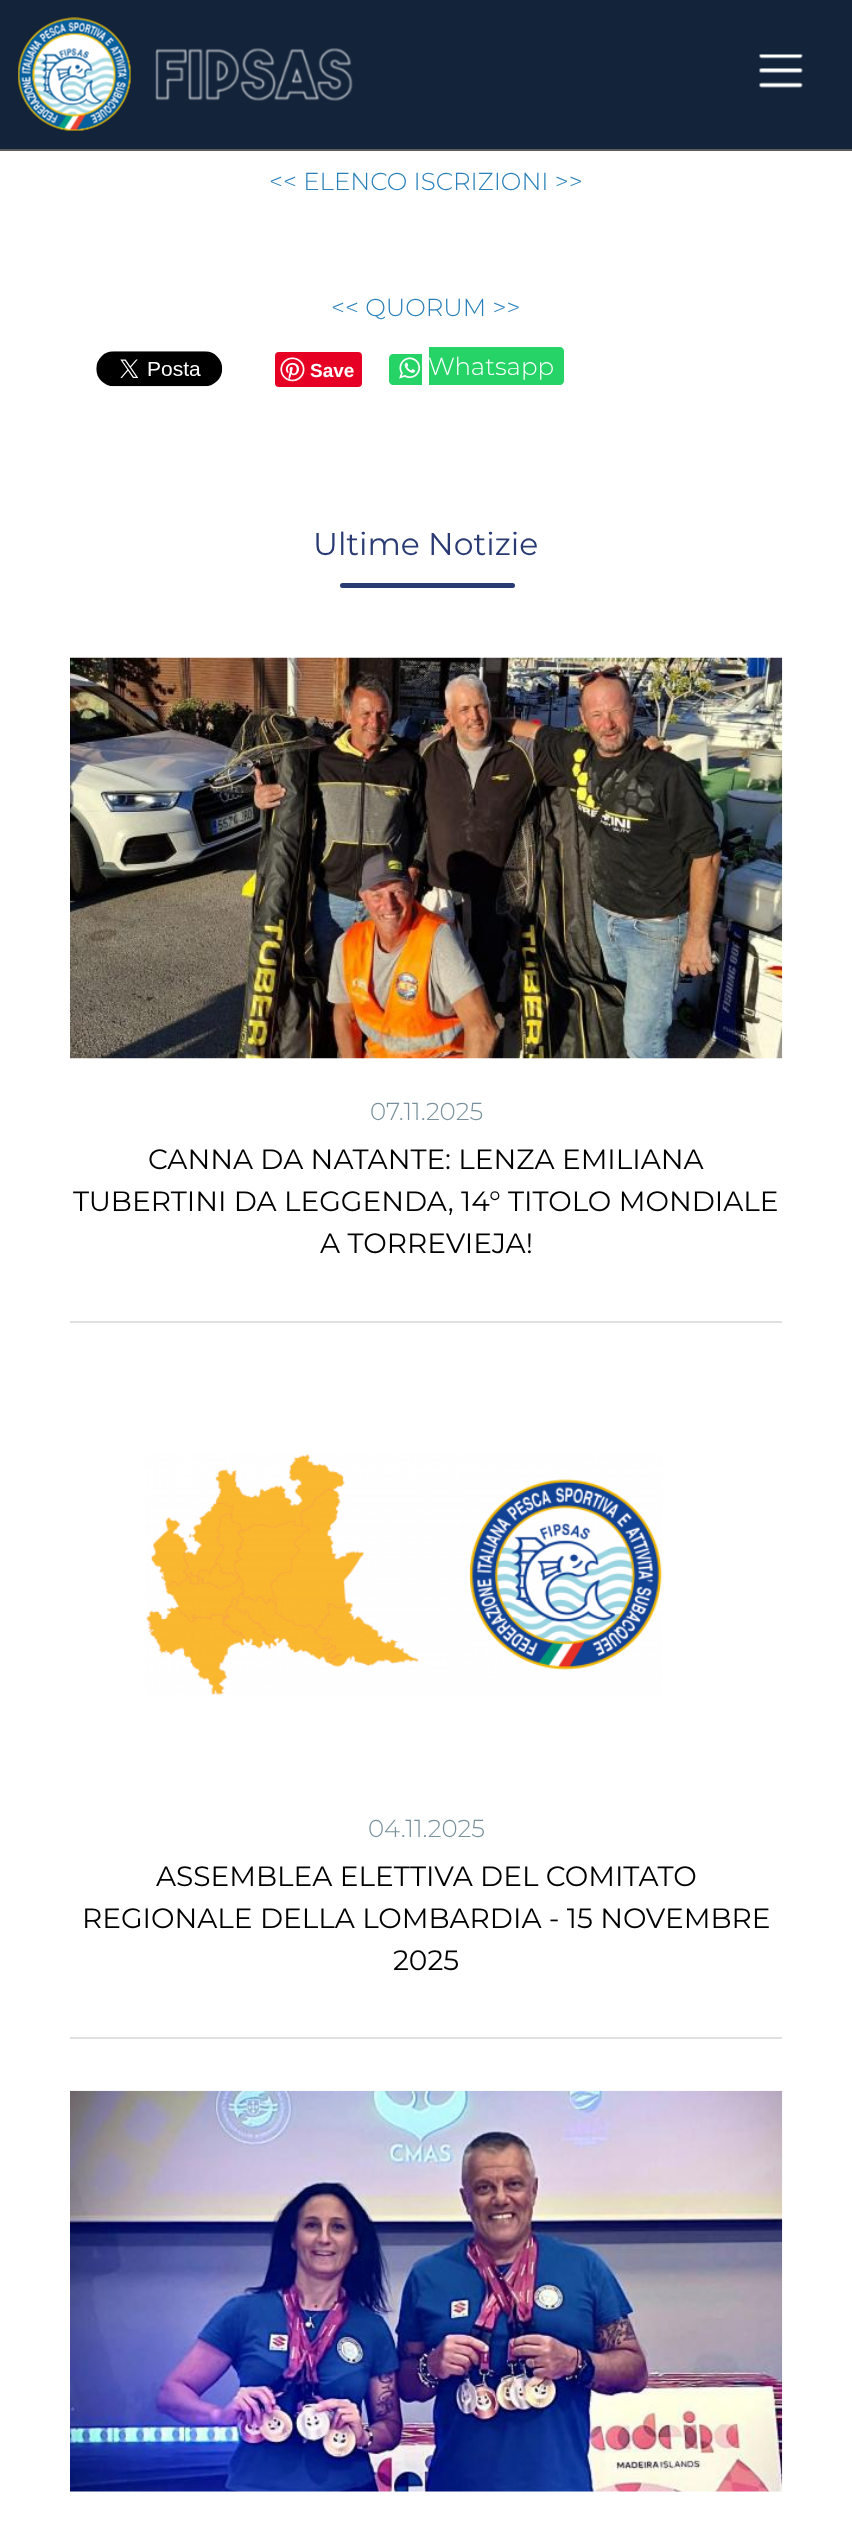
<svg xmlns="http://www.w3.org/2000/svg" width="852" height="2530">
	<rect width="100%" height="100%" fill="#FFFFFF" />
	<rect x="0" y="0" width="852" height="149" fill="#12233A" />
	<image x="18" y="17" width="113" height="114" href="assets/img1.png" />
	<image x="155" y="48" width="198" height="53" href="assets/img2.png" />
	<image x="759" y="54" width="44" height="34" href="assets/img3.png" />
	<rect x="0" y="149" width="852" height="2" fill="#5D5D5D" />
	<g font-family="Montserrat" font-size="24.5" font-weight="300" fill="#2980B9">
		<text x="269" y="190">&lt;&lt; ELENCO ISCRIZIONI &gt;&gt;</text>
		<text x="331" y="316">&lt;&lt; QUORUM &gt;&gt;</text>
	</g>
	<image x="96" y="351" width="127" height="36" href="assets/img4.png" />
	<rect x="275" y="352" width="87" height="35" rx="4" fill="#E60023" />
	<image x="280" y="357" width="25" height="25" href="assets/img5.png" />
	<text x="310" y="377" font-family="Liberation Sans" font-size="19" font-weight="700" fill="#FFFFFF">Save</text>
	<path d="M393 354H422V385H393C391 385 389 383 389 381V358C389 356 391 354 393 354Z" fill="#25D366" />
	<image x="399" y="357" width="22" height="22" href="assets/img6.png" />
	<path d="M429 347H560C562 347 564 349 564 351V381C564 383 562 385 560 385H429Z" fill="#25D366" />
	<text x="428" y="375" font-family="Montserrat" font-size="24.5" font-weight="300" fill="#FFFFFF">Whatsapp</text>
	<text x="313" y="555" font-family="Montserrat" font-size="31.5" fill="#2A3B74">Ultime Notizie</text>
	<rect x="340" y="583" width="175" height="5" rx="2.5" fill="#2A3B74" />
	<rect x="70" y="1321" width="712" height="2" fill="#E0E0E0" />
	<image x="70" y="657" width="713" height="402" href="assets/img7.png" />
	<text x="370" y="1120" font-family="Montserrat" font-size="24.5" font-weight="300" fill="#78909C">07.11.2025</text>
	<g font-family="Montserrat" font-size="28" fill="#000000">
		<text x="148" y="1169">CANNA DA NATANTE: LENZA EMILIANA</text>
		<text x="73" y="1211">TUBERTINI DA LEGGENDA, 14° TITOLO MONDIALE</text>
		<text x="320" y="1253">A TORREVIEJA!</text>
	</g>
	<rect x="70" y="2037" width="712" height="2" fill="#E0E0E0" />
	<image x="146" y="1454" width="516" height="241" href="assets/img8.png" />
	<text x="368" y="1837" font-family="Montserrat" font-size="24.5" font-weight="300" fill="#78909C">04.11.2025</text>
	<g font-family="Montserrat" font-size="28" fill="#000000">
		<text x="156" y="1886">ASSEMBLEA ELETTIVA DEL COMITATO</text>
		<text x="82" y="1928">REGIONALE DELLA LOMBARDIA - 15 NOVEMBRE</text>
		<text x="393" y="1970">2025</text>
	</g>
	<image x="70" y="2090" width="713" height="402" href="assets/img9.png" />
</svg>
